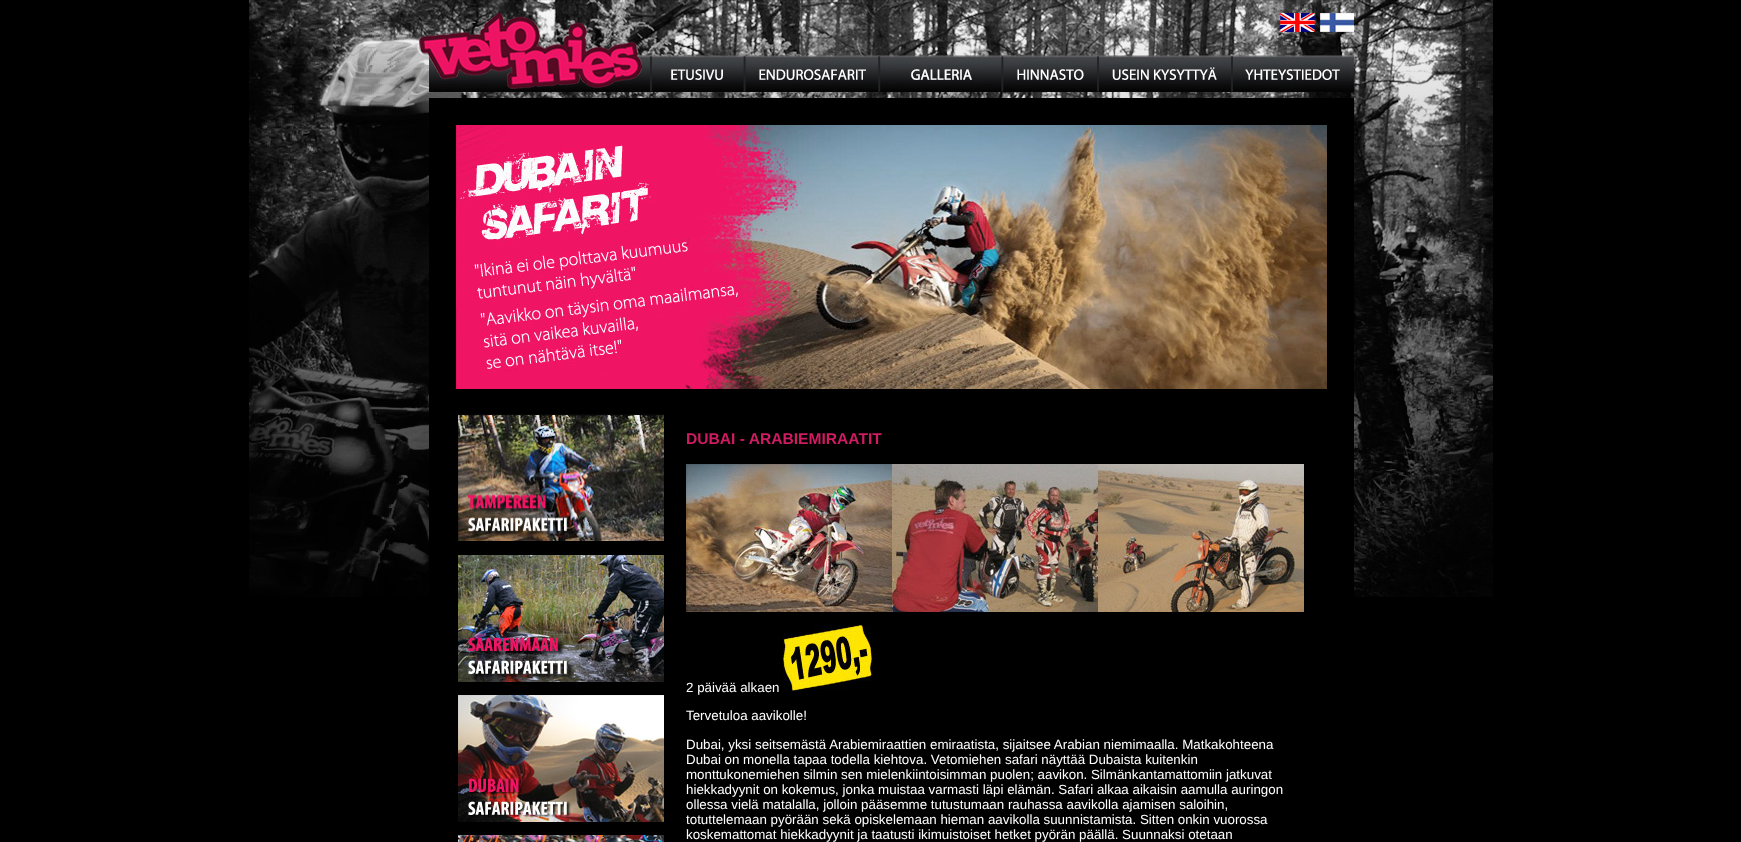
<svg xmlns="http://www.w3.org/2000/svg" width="1741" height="842">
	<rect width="100%" height="100%" fill="#000000" />
	<image x="249" y="0" width="1244" height="13" href="assets/img1.png" />
	<image x="249" y="13" width="1031" height="44" href="assets/img2.png" />
	<image x="1280" y="13" width="35" height="19" href="assets/img3.png" />
	<image x="1315" y="13" width="5" height="44" href="assets/img4.png" />
	<image x="1320" y="13" width="34" height="19" href="assets/img5.png" />
	<image x="1354" y="13" width="139" height="584" href="assets/img6.png" />
	<image x="1280" y="32" width="35" height="25" href="assets/img7.png" />
	<image x="1320" y="32" width="34" height="25" href="assets/img8.png" />
	<image x="249" y="57" width="401" height="41" href="assets/img9.png" />
	<image x="650" y="57" width="93" height="35" href="assets/img10.png" />
	<image x="743" y="57" width="135" height="35" href="assets/img11.png" />
	<image x="878" y="57" width="123" height="35" href="assets/img12.png" />
	<image x="1001" y="57" width="96" height="35" href="assets/img13.png" />
	<image x="1097" y="57" width="134" height="35" href="assets/img14.png" />
	<image x="1231" y="57" width="123" height="35" href="assets/img15.png" />
	<image x="650" y="92" width="704" height="6" href="assets/img16.png" />
	<image x="249" y="98" width="180" height="499" href="assets/img17.png" />
	<image x="456" y="125" width="871" height="264" href="assets/img18.png" />
	<image x="458" y="414" width="206" height="127" href="assets/img19.png" />
	<image x="458" y="555" width="206" height="127" href="assets/img20.png" />
	<image x="458" y="695" width="206" height="127" href="assets/img21.png" />
	<image x="458" y="835" width="206" height="7" href="assets/img22.png" />
	<text x="686" y="444" font-family="Liberation Sans" font-size="15.6" font-weight="700" fill="#CE1B62">DUBAI - ARABIEMIRAATIT</text>
	<image x="686" y="464" width="206" height="148" href="assets/img23.png" />
	<image x="892" y="464" width="206" height="148" href="assets/img24.png" />
	<image x="1098" y="464" width="206" height="148" href="assets/img25.png" />
	<text x="686" y="692" font-family="Liberation Sans" font-size="13.35" fill="#FFFFFF">2 päivää alkaen</text>
	<image x="783" y="625" width="90" height="67" href="assets/img26.png" />
	<g font-family="Liberation Sans" font-size="13.35" fill="#FFFFFF">
		<text x="686" y="720">Tervetuloa aavikolle!</text>
		<text x="686" y="749">Dubai, yksi seitsemästä Arabiemiraattien emiraatista, sijaitsee Arabian niemimaalla. Matkakohteena</text>
		<text x="686" y="764">Dubai on monella tapaa todella kiehtova. Vetomiehen safari näyttää Dubaista kuitenkin</text>
		<text x="686" y="779">monttukonemiehen silmin sen mielenkiintoisimman puolen; aavikon. Silmänkantamattomiin jatkuvat</text>
		<text x="686" y="794">hiekkadyynit on kokemus, jonka muistaa varmasti läpi elämän. Safari alkaa aikaisin aamulla auringon</text>
		<text x="686" y="809">ollessa vielä matalalla, jolloin pääsemme tutustumaan rauhassa aavikolla ajamisen saloihin,</text>
		<text x="686" y="824">totuttelemaan pyörään sekä opiskelemaan hieman aavikolla suunnistamista. Sitten onkin vuorossa</text>
		<text x="686" y="839">koskemattomat hiekkadyynit ja taatusti ikimuistoiset hetket pyörän päällä. Suunnaksi otetaan</text>
	</g>
</svg>
